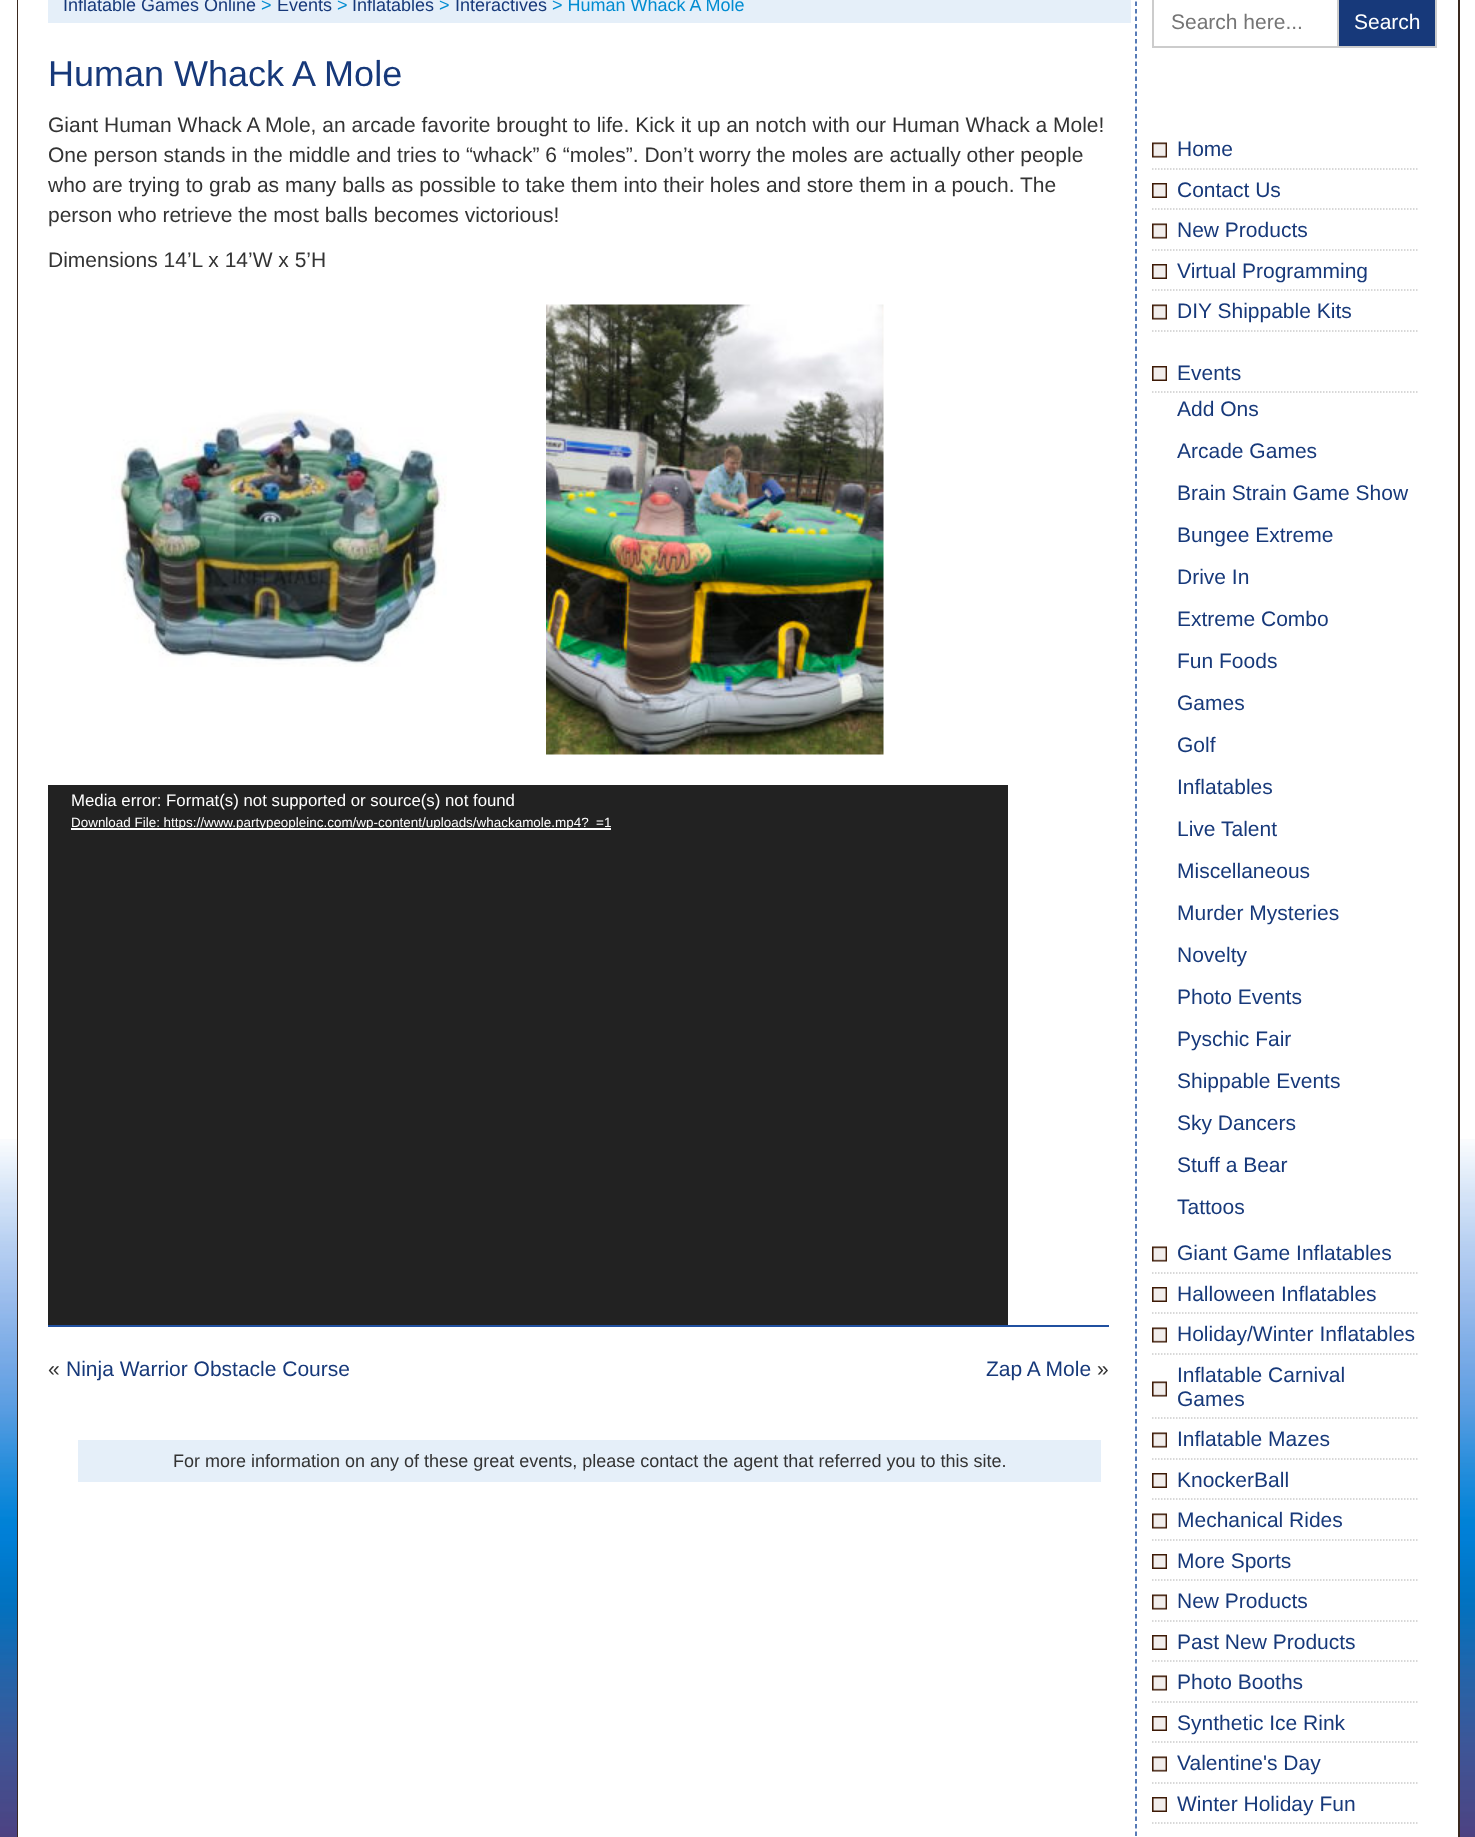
<svg xmlns="http://www.w3.org/2000/svg" width="1475" height="1837">
	<rect width="100%" height="100%" fill="#FFFFFF" />
	<image x="0" y="1139" width="1475" height="698" href="assets/img1.png" />
	<rect x="18" y="-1" width="1441" height="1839" fill="none" stroke="#3A291F" stroke-width="2" />
	<rect x="18" y="0" width="1440" height="1837" fill="#FFFFFF" />
	<rect x="48" y="0" width="1083" height="23" fill="#E5EFF9" />
	<text x="63" y="11" font-family="Liberation Sans" font-size="18" fill="#17397A">Inflatable Games Online</text>
	<text x="261" y="11" font-family="Liberation Sans" font-size="18" fill="#018CD1">&gt;</text>
	<text x="277" y="11" font-family="Liberation Sans" font-size="18" fill="#17397A">Events</text>
	<text x="337" y="11" font-family="Liberation Sans" font-size="18" fill="#018CD1">&gt;</text>
	<text x="352" y="11" font-family="Liberation Sans" font-size="18" fill="#17397A">Inflatables</text>
	<text x="439" y="11" font-family="Liberation Sans" font-size="18" fill="#018CD1">&gt;</text>
	<text x="455" y="11" font-family="Liberation Sans" font-size="18" fill="#17397A">Interactives</text>
	<text x="552" y="11" font-family="Liberation Sans" font-size="18" fill="#018CD1">&gt; Human Whack A Mole</text>
	<text x="48" y="86" font-family="Liberation Sans" font-size="36" fill="#17397A">Human Whack A Mole</text>
	<rect x="48" y="1325" width="1061" height="2" fill="#2050A0" />
	<g font-family="Liberation Sans" font-size="21" fill="#333333">
		<text x="48" y="132">Giant Human Whack A Mole, an arcade favorite brought to life. Kick it up an notch with our Human Whack a Mole!</text>
		<text x="48" y="162">One person stands in the middle and tries to “whack” 6 “moles”. Don’t worry the moles are actually other people</text>
		<text x="48" y="192">who are trying to grab as many balls as possible to take them into their holes and store them in a pouch. The</text>
		<text x="48" y="222">person who retrieve the most balls becomes victorious!</text>
		<text x="48" y="267">Dimensions 14’L x 14’W x 5’H</text>
	</g>
	<image x="111" y="409" width="336" height="258" href="assets/img2.png" />
	<image x="546" y="304" width="338" height="451" href="assets/img3.png" />
	<rect x="48" y="785" width="960" height="540" fill="#222222" />
	<text x="71" y="806" font-family="Liberation Sans" font-size="16.8" fill="#FFFFFF">Media error: Format(s) not supported or source(s) not found</text>
	<rect x="71" y="828" width="540" height="2" fill="#FFFFFF" />
	<text x="71" y="827" font-family="Liberation Sans" font-size="13.45" fill="#FFFFFF">Download File: https://www.partypeopleinc.com/wp-content/uploads/whackamole.mp4?_=1</text>
	<text x="48" y="1376" font-family="Liberation Sans" font-size="21" fill="#333333">«</text>
	<g font-family="Liberation Sans" font-size="21" fill="#17397A">
		<text x="66" y="1376">Ninja Warrior Obstacle Course</text>
		<text x="986" y="1376">Zap A Mole</text>
	</g>
	<text x="1097" y="1376" font-family="Liberation Sans" font-size="21" fill="#333333">»</text>
	<rect x="78" y="1440" width="1023" height="42" fill="#E5EFF9" />
	<text x="173" y="1467" font-family="Liberation Sans" font-size="18" fill="#333333">For more information on any of these great events, please contact the agent that referred you to this site.</text>
	<path d="M1136-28.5V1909.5" fill="none" stroke="#2050A0" stroke-width="1.5" stroke-dasharray="4.5 3" />
	<rect x="1153" y="-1" width="283" height="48" fill="none" stroke="#CCCCCC" stroke-width="2" />
	<text x="1171" y="29" font-family="Liberation Sans" font-size="21" fill="#757575">Search here...</text>
	<rect x="1338" y="-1" width="98" height="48" fill="#17397A" stroke="#CCCCCC" stroke-width="2" />
	<text x="1354" y="29" font-family="Liberation Sans" font-size="21" fill="#FFFFFF">Search</text>
	<image x="1152" y="142" width="15" height="16" href="assets/img4.png" />
	<path d="M1152 169H1417.5" fill="none" stroke="#CCCCCC" stroke-width="1.5" stroke-dasharray="1.5 1.5" />
	<text x="1177" y="156" font-family="Liberation Sans" font-size="21" fill="#17397A">Home</text>
	<image x="1152" y="183" width="15" height="15" href="assets/img5.png" />
	<path d="M1152 209H1417.5" fill="none" stroke="#CCCCCC" stroke-width="1.5" stroke-dasharray="1.5 1.5" />
	<text x="1177" y="197" font-family="Liberation Sans" font-size="21" fill="#17397A">Contact Us</text>
	<image x="1152" y="223" width="15" height="16" href="assets/img4.png" />
	<path d="M1152 250H1417.5" fill="none" stroke="#CCCCCC" stroke-width="1.5" stroke-dasharray="1.5 1.5" />
	<text x="1177" y="237" font-family="Liberation Sans" font-size="21" fill="#17397A">New Products</text>
	<image x="1152" y="264" width="15" height="15" href="assets/img5.png" />
	<path d="M1152 290H1417.5" fill="none" stroke="#CCCCCC" stroke-width="1.5" stroke-dasharray="1.5 1.5" />
	<text x="1177" y="278" font-family="Liberation Sans" font-size="21" fill="#17397A">Virtual Programming</text>
	<image x="1152" y="304" width="15" height="16" href="assets/img4.png" />
	<path d="M1152 331H1417.5" fill="none" stroke="#CCCCCC" stroke-width="1.5" stroke-dasharray="1.5 1.5" />
	<text x="1177" y="318" font-family="Liberation Sans" font-size="21" fill="#17397A">DIY Shippable Kits</text>
	<image x="1152" y="366" width="15" height="15" href="assets/img5.png" />
	<path d="M1152 392H1417.5" fill="none" stroke="#CCCCCC" stroke-width="1.5" stroke-dasharray="1.5 1.5" />
	<g font-family="Liberation Sans" font-size="21" fill="#17397A">
		<text x="1177" y="380">Events</text>
		<text x="1177" y="416">Add Ons</text>
		<text x="1177" y="458">Arcade Games</text>
		<text x="1177" y="500">Brain Strain Game Show</text>
		<text x="1177" y="542">Bungee Extreme</text>
		<text x="1177" y="584">Drive In</text>
		<text x="1177" y="626">Extreme Combo</text>
		<text x="1177" y="668">Fun Foods</text>
		<text x="1177" y="710">Games</text>
		<text x="1177" y="752">Golf</text>
		<text x="1177" y="794">Inflatables</text>
		<text x="1177" y="836">Live Talent</text>
		<text x="1177" y="878">Miscellaneous</text>
		<text x="1177" y="920">Murder Mysteries</text>
		<text x="1177" y="962">Novelty</text>
		<text x="1177" y="1004">Photo Events</text>
		<text x="1177" y="1046">Pyschic Fair</text>
		<text x="1177" y="1088">Shippable Events</text>
		<text x="1177" y="1130">Sky Dancers</text>
		<text x="1177" y="1172">Stuff a Bear</text>
		<text x="1177" y="1214">Tattoos</text>
	</g>
	<image x="1152" y="1246" width="15" height="16" href="assets/img4.png" />
	<path d="M1152 1273H1417.5" fill="none" stroke="#CCCCCC" stroke-width="1.5" stroke-dasharray="1.5 1.5" />
	<text x="1177" y="1260" font-family="Liberation Sans" font-size="21" fill="#17397A">Giant Game Inflatables</text>
	<image x="1152" y="1287" width="15" height="15" href="assets/img5.png" />
	<path d="M1152 1313H1417.5" fill="none" stroke="#CCCCCC" stroke-width="1.5" stroke-dasharray="1.5 1.5" />
	<text x="1177" y="1301" font-family="Liberation Sans" font-size="21" fill="#17397A">Halloween Inflatables</text>
	<image x="1152" y="1327" width="15" height="16" href="assets/img4.png" />
	<path d="M1152 1354H1417.5" fill="none" stroke="#CCCCCC" stroke-width="1.5" stroke-dasharray="1.5 1.5" />
	<text x="1177" y="1341" font-family="Liberation Sans" font-size="21" fill="#17397A">Holiday/Winter Inflatables</text>
	<image x="1152" y="1381" width="15" height="16" href="assets/img4.png" />
	<path d="M1152 1418H1417.5" fill="none" stroke="#CCCCCC" stroke-width="1.5" stroke-dasharray="1.5 1.5" />
	<g font-family="Liberation Sans" font-size="21" fill="#17397A">
		<text x="1177" y="1382">Inflatable Carnival</text>
		<text x="1177" y="1406">Games</text>
	</g>
	<image x="1152" y="1432" width="15" height="16" href="assets/img4.png" />
	<path d="M1152 1459H1417.5" fill="none" stroke="#CCCCCC" stroke-width="1.5" stroke-dasharray="1.5 1.5" />
	<text x="1177" y="1446" font-family="Liberation Sans" font-size="21" fill="#17397A">Inflatable Mazes</text>
	<image x="1152" y="1473" width="15" height="15" href="assets/img5.png" />
	<path d="M1152 1499H1417.5" fill="none" stroke="#CCCCCC" stroke-width="1.5" stroke-dasharray="1.5 1.5" />
	<text x="1177" y="1487" font-family="Liberation Sans" font-size="21" fill="#17397A">KnockerBall</text>
	<image x="1152" y="1513" width="15" height="16" href="assets/img4.png" />
	<path d="M1152 1540H1417.5" fill="none" stroke="#CCCCCC" stroke-width="1.5" stroke-dasharray="1.5 1.5" />
	<text x="1177" y="1527" font-family="Liberation Sans" font-size="21" fill="#17397A">Mechanical Rides</text>
	<image x="1152" y="1554" width="15" height="15" href="assets/img5.png" />
	<path d="M1152 1580H1417.5" fill="none" stroke="#CCCCCC" stroke-width="1.5" stroke-dasharray="1.5 1.5" />
	<text x="1177" y="1568" font-family="Liberation Sans" font-size="21" fill="#17397A">More Sports</text>
	<image x="1152" y="1594" width="15" height="16" href="assets/img4.png" />
	<path d="M1152 1621H1417.5" fill="none" stroke="#CCCCCC" stroke-width="1.5" stroke-dasharray="1.5 1.5" />
	<text x="1177" y="1608" font-family="Liberation Sans" font-size="21" fill="#17397A">New Products</text>
	<image x="1152" y="1635" width="15" height="15" href="assets/img5.png" />
	<path d="M1152 1661H1417.5" fill="none" stroke="#CCCCCC" stroke-width="1.5" stroke-dasharray="1.5 1.5" />
	<text x="1177" y="1649" font-family="Liberation Sans" font-size="21" fill="#17397A">Past New Products</text>
	<image x="1152" y="1675" width="15" height="16" href="assets/img4.png" />
	<path d="M1152 1702H1417.5" fill="none" stroke="#CCCCCC" stroke-width="1.5" stroke-dasharray="1.5 1.5" />
	<text x="1177" y="1689" font-family="Liberation Sans" font-size="21" fill="#17397A">Photo Booths</text>
	<image x="1152" y="1716" width="15" height="15" href="assets/img5.png" />
	<path d="M1152 1742H1417.5" fill="none" stroke="#CCCCCC" stroke-width="1.5" stroke-dasharray="1.5 1.5" />
	<text x="1177" y="1730" font-family="Liberation Sans" font-size="21" fill="#17397A">Synthetic Ice Rink</text>
	<image x="1152" y="1756" width="15" height="16" href="assets/img4.png" />
	<path d="M1152 1783H1417.5" fill="none" stroke="#CCCCCC" stroke-width="1.5" stroke-dasharray="1.5 1.5" />
	<text x="1177" y="1770" font-family="Liberation Sans" font-size="21" fill="#17397A">Valentine's Day</text>
	<image x="1152" y="1797" width="15" height="15" href="assets/img5.png" />
	<path d="M1152 1823H1417.5" fill="none" stroke="#CCCCCC" stroke-width="1.5" stroke-dasharray="1.5 1.5" />
	<text x="1177" y="1811" font-family="Liberation Sans" font-size="21" fill="#17397A">Winter Holiday Fun</text>
</svg>
